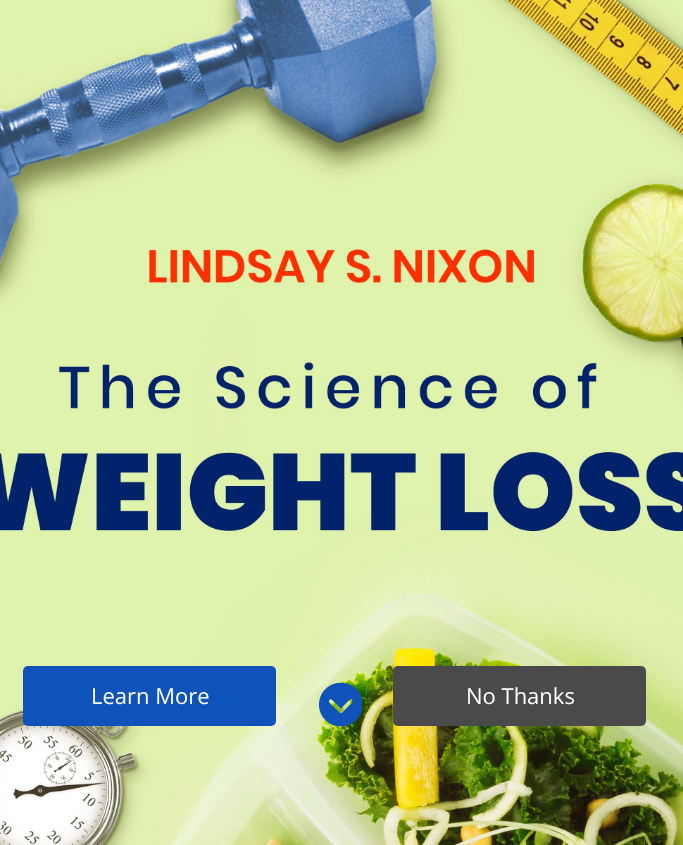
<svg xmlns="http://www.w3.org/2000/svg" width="683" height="845">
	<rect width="100%" height="100%" fill="#FFFFFF" />
	<image x="0" y="0" width="683" height="845" href="assets/img1.png" />
	<rect x="23" y="666" width="253" height="60" rx="5" fill="#0F52BA" />
	<text x="91" y="704" font-family="Open Sans" font-size="22" fill="#FFFFFF">Learn More</text>
	<image x="318" y="682" width="44" height="44" href="assets/img2.png" />
	<rect x="393" y="666" width="253" height="60" rx="5" fill="#4A4A4A" />
	<text x="466" y="704" font-family="Open Sans" font-size="22" fill="#FFFFFF">No Thanks</text>
</svg>
